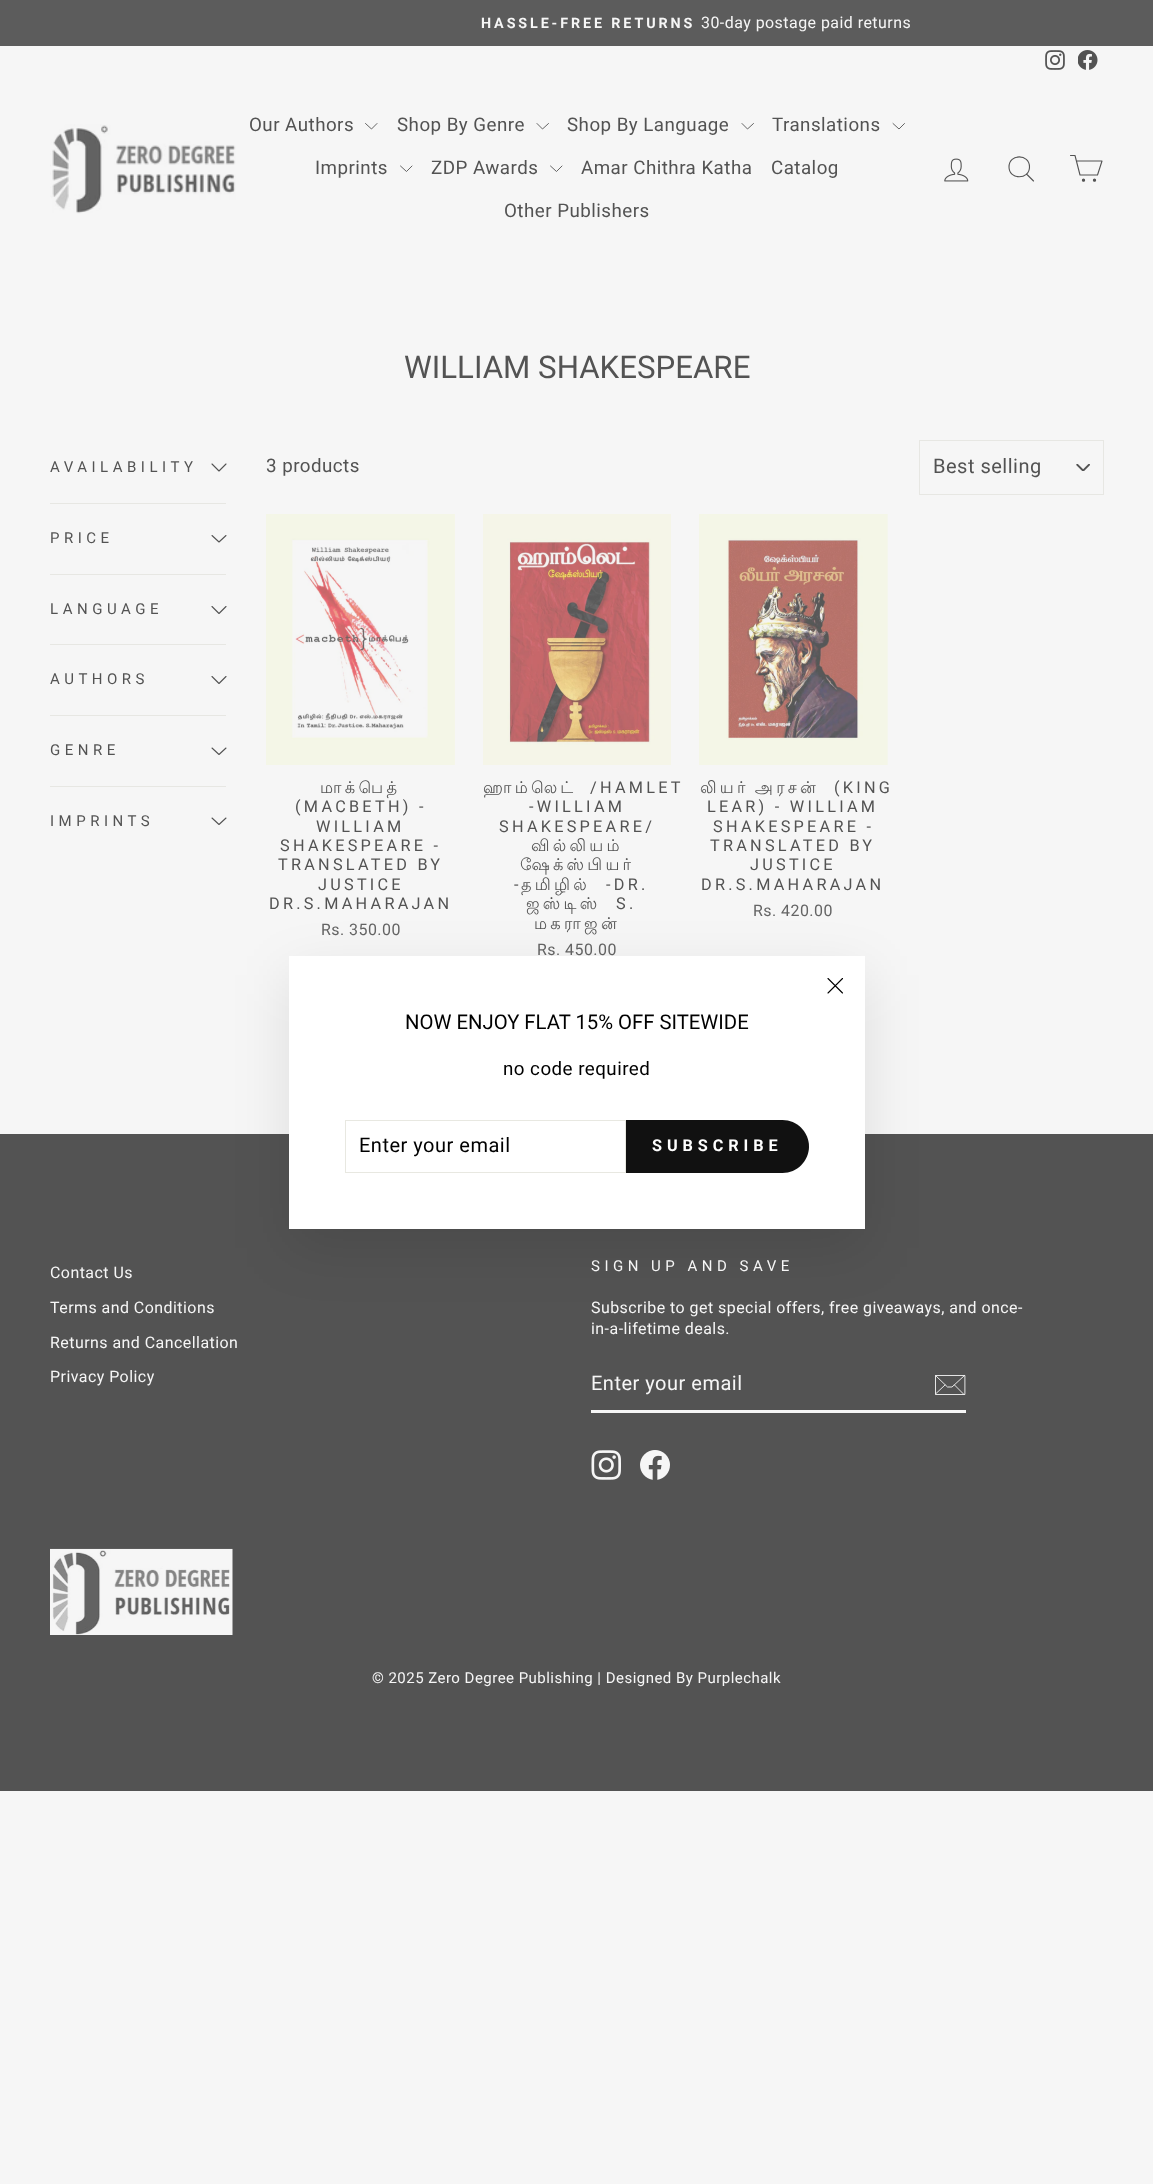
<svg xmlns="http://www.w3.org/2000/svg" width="1153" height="2184">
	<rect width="100%" height="100%" fill="#F6F6F6" />
	<rect x="0" y="0" width="1153" height="46" fill="#5C5C5C" />
	<text x="481" y="28" font-family="Roboto" font-size="14.3" font-weight="700" letter-spacing="2.9" fill="#F6F6F6">HASSLE-FREE RETURNS</text>
	<text x="701" y="28" font-family="Roboto" font-size="15.95" letter-spacing="0.47" fill="#F6F6F6">30-day postage paid returns</text>
	<image x="1045" y="50" width="20" height="20" href="assets/img1.png" />
	<image x="1078" y="50" width="20" height="20" href="assets/img2.png" />
	<rect x="0" y="79" width="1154" height="180" fill="#535353" fill-opacity="0.2" filter="blur(0.5px)" />
	<rect x="0" y="79" width="1153" height="180" fill="#F6F6F6" />
	<image x="50" y="124" width="186" height="90" href="assets/img3.png" />
	<text x="249" y="131" font-family="Roboto" font-size="18.75" letter-spacing="0.47" fill="#535353">Our Authors</text>
	<path d="M365.5 123.5L371.5 129L377 123.5" fill="none" stroke="#535353" stroke-width="0.9" stroke-linecap="round" stroke-linejoin="round" />
	<text x="397" y="131" font-family="Roboto" font-size="18.75" letter-spacing="0.47" fill="#535353">Shop By Genre</text>
	<path d="M537 123.5L542.5 129L548.5 123.5" fill="none" stroke="#535353" stroke-width="0.9" stroke-linecap="round" stroke-linejoin="round" />
	<text x="567" y="131" font-family="Roboto" font-size="18.75" letter-spacing="0.47" fill="#535353">Shop By Language</text>
	<path d="M742 123.5L747.5 129L753.5 123.5" fill="none" stroke="#535353" stroke-width="0.9" stroke-linecap="round" stroke-linejoin="round" />
	<text x="772" y="131" font-family="Roboto" font-size="18.75" letter-spacing="0.47" fill="#535353">Translations</text>
	<path d="M893 123.5L899 129L904.5 123.5" fill="none" stroke="#535353" stroke-width="0.9" stroke-linecap="round" stroke-linejoin="round" />
	<text x="315" y="174" font-family="Roboto" font-size="18.75" letter-spacing="0.47" fill="#535353">Imprints</text>
	<path d="M400.5 166L406.5 171.5L412 166" fill="none" stroke="#535353" stroke-width="0.9" stroke-linecap="round" stroke-linejoin="round" />
	<text x="431" y="174" font-family="Roboto" font-size="18.75" letter-spacing="0.47" fill="#535353">ZDP Awards</text>
	<path d="M550.5 166L556.5 171.5L562 166" fill="none" stroke="#535353" stroke-width="0.9" stroke-linecap="round" stroke-linejoin="round" />
	<g font-family="Roboto" font-size="18.75" letter-spacing="0.47" fill="#535353">
		<text x="581" y="174">Amar Chithra Katha</text>
		<text x="771" y="174">Catalog</text>
		<text x="504" y="217">Other Publishers</text>
	</g>
	<image x="944" y="158" width="25" height="24" href="assets/img4.png" />
	<path d="M1029.5 167C1029.5 180 1009 180 1009 167C1009 153.5 1029.5 153.5 1029.5 167ZM1033.5 181L1026.5 174" fill="none" stroke="#535353" stroke-width="1.1" stroke-linecap="round" stroke-linejoin="round" />
	<path d="M1076.5 161H1102L1097.5 175H1080L1075 155.5H1070.5" fill="none" stroke="#535353" stroke-width="1.1" stroke-linecap="round" stroke-linejoin="round" />
	<circle cx="1083.5" cy="180.2" r="1.1" fill="#535353" stroke="#535353" stroke-width="1.1" />
	<circle cx="1094.5" cy="180.2" r="1.1" fill="#535353" stroke="#535353" stroke-width="1.1" />
	<text x="404" y="378" font-family="Roboto" font-size="31.25" fill="#535353">WILLIAM SHAKESPEARE</text>
	<text x="50" y="472" font-family="Roboto" font-size="15" letter-spacing="4.5" fill="#535353">AVAILABILITY</text>
	<path d="M212 464L219 471L226 464" fill="none" stroke="#535353" stroke-width="1.1" stroke-linecap="round" stroke-linejoin="round" />
	<rect x="50" y="503" width="176" height="1" fill="#E7E7E3" />
	<text x="50" y="543" font-family="Roboto" font-size="15" letter-spacing="4.5" fill="#535353">PRICE</text>
	<path d="M212 535.5L219 542L226 535.5" fill="none" stroke="#535353" stroke-width="1.1" stroke-linecap="round" stroke-linejoin="round" />
	<rect x="50" y="574" width="176" height="1" fill="#E7E7E3" />
	<text x="50" y="614" font-family="Roboto" font-size="15" letter-spacing="4.5" fill="#535353">LANGUAGE</text>
	<path d="M212 606.5L219 613.5L226 606.5" fill="none" stroke="#535353" stroke-width="1.1" stroke-linecap="round" stroke-linejoin="round" />
	<rect x="50" y="644" width="176" height="1" fill="#E7E7E3" />
	<text x="50" y="684" font-family="Roboto" font-size="15" letter-spacing="4.5" fill="#535353">AUTHORS</text>
	<path d="M212 676.5L219 683.5L226 676.5" fill="none" stroke="#535353" stroke-width="1.1" stroke-linecap="round" stroke-linejoin="round" />
	<rect x="50" y="715" width="176" height="1" fill="#E7E7E3" />
	<text x="50" y="755" font-family="Roboto" font-size="15" letter-spacing="4.5" fill="#535353">GENRE</text>
	<path d="M212 748L219 754.5L226 748" fill="none" stroke="#535353" stroke-width="1.1" stroke-linecap="round" stroke-linejoin="round" />
	<rect x="50" y="786" width="176" height="1" fill="#E7E7E3" />
	<text x="50" y="826" font-family="Roboto" font-size="15" letter-spacing="4.5" fill="#535353">IMPRINTS</text>
	<path d="M212 818L219 824.5L226 818" fill="none" stroke="#535353" stroke-width="1.1" stroke-linecap="round" stroke-linejoin="round" />
	<text x="266" y="472" font-family="Roboto" font-size="18.75" letter-spacing="0.47" fill="#535353">3 products</text>
	<image x="1076" y="464" width="14" height="7" href="assets/img5.png" />
	<rect x="919.5" y="440.5" width="184" height="54" fill="none" stroke="#E7E7E3" />
	<text x="933" y="473" font-family="Roboto" font-size="20" letter-spacing="0.5" fill="#535353">Best selling</text>
	<image x="266" y="514" width="189" height="251" href="assets/img6.png" />
	<text x="320" y="793" font-family="Lohit Tamil" font-size="16.25" letter-spacing="3.25" fill="#535353">மாக்பெத்</text>
	<g font-family="Roboto" font-size="16.25" letter-spacing="3.25" fill="#535353">
		<text x="295" y="812">(MACBETH) -</text>
		<text x="316" y="832">WILLIAM</text>
		<text x="280" y="851">SHAKESPEARE -</text>
		<text x="278" y="870">TRANSLATED BY</text>
		<text x="318" y="890">JUSTICE</text>
		<text x="269" y="909">DR.S.MAHARAJAN</text>
	</g>
	<text x="321" y="935" font-family="Roboto" font-size="15.95" letter-spacing="0.47" fill="#656565">Rs. 350.00</text>
	<image x="483" y="514" width="188" height="251" href="assets/img7.png" />
	<text x="483" y="793" font-family="Lohit Tamil" font-size="16.25" letter-spacing="3.25" fill="#535353">ஹாம்லெட்</text>
	<g font-family="Roboto" font-size="16.25" letter-spacing="3.25" fill="#535353">
		<text x="590" y="793">/HAMLET</text>
		<text x="529" y="812">-WILLIAM</text>
		<text x="499" y="832">SHAKESPEARE/</text>
	</g>
	<g font-family="Lohit Tamil" font-size="16.25" letter-spacing="3.25" fill="#535353">
		<text x="531" y="851">வில்லியம்</text>
		<text x="520" y="870">ஷேக்ஸ்பியர்</text>
	</g>
	<text x="514" y="890" font-family="Roboto" font-size="16.25" letter-spacing="3.25" fill="#535353">-</text>
	<text x="521" y="890" font-family="Lohit Tamil" font-size="16.25" letter-spacing="3.25" fill="#535353">தமிழில்</text>
	<text x="606" y="890" font-family="Roboto" font-size="16.25" letter-spacing="3.25" fill="#535353">-DR.</text>
	<text x="526" y="909" font-family="Lohit Tamil" font-size="16.25" letter-spacing="3.25" fill="#535353">ஜஸ்டிஸ்</text>
	<text x="616" y="909" font-family="Roboto" font-size="16.25" letter-spacing="3.25" fill="#535353">S.</text>
	<text x="534" y="929" font-family="Lohit Tamil" font-size="16.25" letter-spacing="3.25" fill="#535353">மகராஜன்</text>
	<text x="537" y="955" font-family="Roboto" font-size="15.95" letter-spacing="0.47" fill="#656565">Rs. 450.00</text>
	<image x="699" y="514" width="189" height="251" href="assets/img8.png" />
	<text x="700" y="793" word-spacing="-2" font-family="Lohit Tamil" font-size="16.25" letter-spacing="3.25" fill="#535353">லியர் அரசன்</text>
	<g font-family="Roboto" font-size="16.25" letter-spacing="3.25" fill="#535353">
		<text x="834" y="793">(KING</text>
		<text x="707" y="812">LEAR) - WILLIAM</text>
		<text x="713" y="832">SHAKESPEARE -</text>
		<text x="710" y="851">TRANSLATED BY</text>
		<text x="750" y="870">JUSTICE</text>
		<text x="701" y="890">DR.S.MAHARAJAN</text>
	</g>
	<text x="753" y="916" font-family="Roboto" font-size="15.95" letter-spacing="0.47" fill="#656565">Rs. 420.00</text>
	<rect x="0" y="1134" width="1153" height="657" fill="#535353" />
	<rect x="289" y="975" width="576" height="273" fill="#000000" fill-opacity="0.1" filter="blur(28px)" />
	<rect x="289" y="956" width="576" height="273" fill="#FFFFFF" />
	<path d="M828 978.5L842.5 993M842.5 978.5L828 993" fill="none" stroke="#000000" stroke-width="1.1" stroke-linecap="round" stroke-linejoin="round" />
	<text x="405" y="1029" font-family="Roboto" font-size="20.3" fill="#000000">NOW ENJOY FLAT 15% OFF SITEWIDE</text>
	<text x="503" y="1075" font-family="Roboto" font-size="18.75" letter-spacing="0.47" fill="#000000">no code required</text>
	<rect x="345.5" y="1120.5" width="280" height="52" fill="none" stroke="#E8E8E1" />
	<text x="359" y="1152" font-family="Roboto" font-size="20" letter-spacing="0.5" fill="#000000">Enter your email</text>
	<path d="M626 1120H782.5C797 1120 809 1132 809 1146.5C809 1161 797 1173 782.5 1173H626Z" fill="#111111" />
	<text x="652" y="1151" font-family="Roboto" font-size="16.25" font-weight="700" letter-spacing="4.9" fill="#FFFFFF">SUBSCRIBE</text>
	<g font-family="Roboto" font-size="15.95" letter-spacing="0.47" fill="#F6F6F6">
		<text x="50" y="1278">Contact Us</text>
		<text x="50" y="1313">Terms and Conditions</text>
		<text x="50" y="1348">Returns and Cancellation</text>
		<text x="50" y="1382">Privacy Policy</text>
	</g>
	<text x="591" y="1271" font-family="Roboto" font-size="15" letter-spacing="4.5" fill="#F6F6F6">SIGN UP AND SAVE</text>
	<g font-family="Roboto" font-size="15.95" letter-spacing="0.47" fill="#F6F6F6">
		<text x="591" y="1313">Subscribe to get special offers, free giveaways, and once-</text>
		<text x="591" y="1334">in-a-lifetime deals.</text>
	</g>
	<rect x="591" y="1410" width="375" height="3" fill="#F6F6F6" />
	<text x="591" y="1390" font-family="Roboto" font-size="20" letter-spacing="0.5" fill="#F6F6F6">Enter your email</text>
	<path d="M964.5 1394.5H935.5V1375.5H964.5ZM935.5 1375.5L947.5 1387H952L964.5 1375.5M945 1385L935.5 1394M964 1394.5L954.5 1385" fill="none" stroke="#F6F6F6" stroke-width="0.9" stroke-linecap="round" stroke-linejoin="round" />
	<image x="591" y="1450" width="30" height="30" href="assets/img9.png" />
	<image x="640" y="1450" width="30" height="30" href="assets/img10.png" />
	<image x="50" y="1548" width="183" height="87" href="assets/img11.png" />
	<text x="372" y="1683" font-family="Roboto" font-size="15" letter-spacing="0.47" fill="#F6F6F6">© 2025 Zero Degree Publishing | Designed By Purplechalk</text>
</svg>
